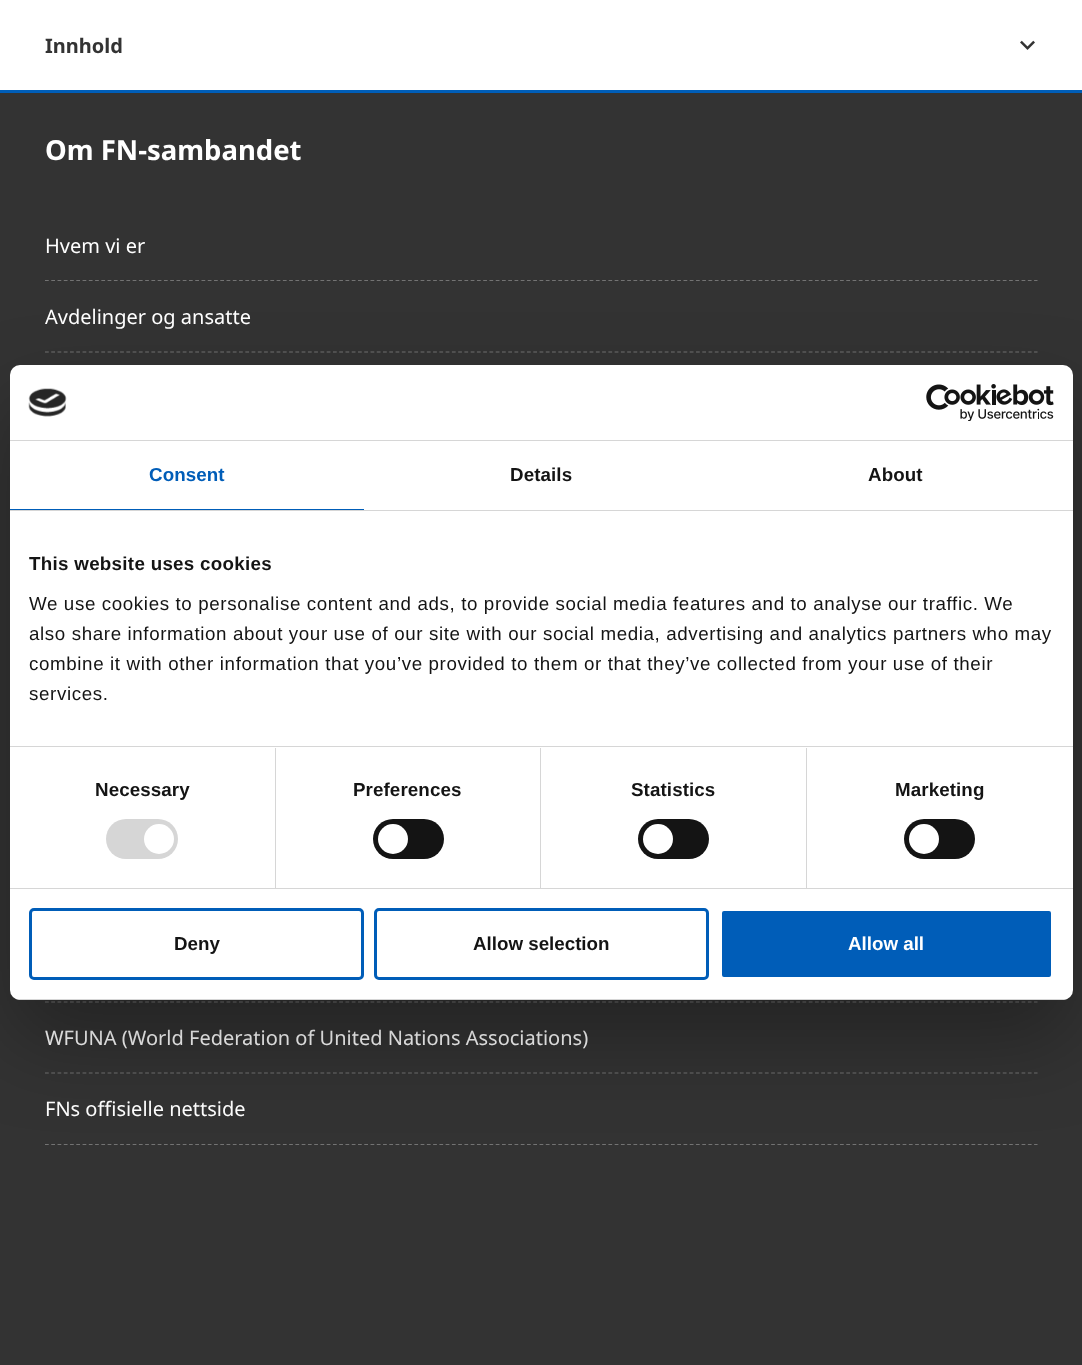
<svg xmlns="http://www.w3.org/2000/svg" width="1082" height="1365">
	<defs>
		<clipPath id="clip1"><rect x="10" y="365" width="1063" height="635" rx="10" /></clipPath>
	</defs>
	<rect width="100%" height="100%" fill="#333333" />
	<rect x="0" y="0" width="1082" height="90" fill="#FFFFFF" />
	<rect x="0" y="90" width="1082" height="3" fill="#005EB8" />
	<text x="45" y="53" font-family="Noto Sans" font-size="20" font-weight="700" fill="#333333">Innhold</text>
	<image x="1020" y="40" width="15" height="10" href="assets/img1.png" />
	<text x="45" y="160" font-family="Noto Sans" font-size="27.5" font-weight="700" fill="#FFFFFF">Om FN-sambandet</text>
	<path d="M45 280.5H1037.5" fill="none" stroke="#737373" stroke-width="1.2" stroke-dasharray="3.75 2.51" />
	<text x="45" y="253" font-family="Noto Sans" font-size="20" fill="#FFFFFF">Hvem vi er</text>
	<path d="M45 352H1037.5" fill="none" stroke="#737373" stroke-width="1.2" stroke-dasharray="3.75 2.51" />
	<text x="45" y="324" font-family="Noto Sans" font-size="20" fill="#FFFFFF">Avdelinger og ansatte</text>
	<path d="M45 1002H1037.5" fill="none" stroke="#737373" stroke-width="1.2" stroke-dasharray="3.75 2.51" />
	<path d="M45 1073H1037.5" fill="none" stroke="#737373" stroke-width="1.2" stroke-dasharray="3.75 2.51" />
	<text x="45" y="1045" font-family="Noto Sans" font-size="20" fill="#FFFFFF">WFUNA (World Federation of United Nations Associations)</text>
	<path d="M45 1144.5H1037.5" fill="none" stroke="#737373" stroke-width="1.2" stroke-dasharray="3.75 2.51" />
	<text x="45" y="1116" font-family="Noto Sans" font-size="20" fill="#FFFFFF">FNs offisielle nettside</text>
	<rect x="10" y="405" width="1063" height="635" rx="10" fill="#000000" fill-opacity="0.3" filter="blur(42.5px)" />
	<rect x="10" y="365" width="1063" height="635" rx="10" fill="#FFFFFF" />
	<rect x="10" y="440" width="1063" height="1" fill="#D6D6D6" />
	<image x="28" y="388" width="39" height="29" href="assets/img2.png" />
	<image x="926" y="384" width="128" height="37" href="assets/img3.png" />
	<rect x="10" y="510" width="1063" height="1" fill="#D6D6D6" />
	<rect x="10" y="509" width="354" height="1" fill="#005DB8" />
	<text x="149" y="481" font-family="Liberation Sans" font-size="18.75" font-weight="700" letter-spacing="0.1" fill="#005DB8">Consent</text>
	<g font-family="Liberation Sans" font-size="18.75" font-weight="700" letter-spacing="0.1" fill="#141414">
		<text x="510" y="481">Details</text>
		<text x="868" y="481">About</text>
	</g>
	<rect x="10" y="746" width="1063" height="1" fill="#D6D6D6" />
	<text x="29" y="570" font-family="Liberation Sans" font-size="18.75" font-weight="700" letter-spacing="0.3" fill="#141414">This website uses cookies</text>
	<g font-family="Liberation Sans" font-size="18.75" letter-spacing="0.62" fill="#141414">
		<text x="29" y="610">We use cookies to personalise content and ads, to provide social media features and to analyse our traffic. We</text>
		<text x="29" y="640">also share information about your use of our site with our social media, advertising and analytics partners who may</text>
		<text x="29" y="670">combine it with other information that you’ve provided to them or that they’ve collected from your use of their</text>
		<text x="29" y="700">services.</text>
	</g>
	<rect x="10" y="888" width="1063" height="1" fill="#D6D6D6" />
	<rect x="275" y="748" width="1" height="140" fill="#D6D6D6" />
	<text x="95" y="796" font-family="Liberation Sans" font-size="18.75" font-weight="700" letter-spacing="0.1" fill="#141414">Necessary</text>
	<rect x="106" y="819" width="72" height="40" rx="20" fill="#D6D6D6" />
	<circle cx="159" cy="839" r="15" fill="#FFFFFF" />
	<rect x="540" y="748" width="1" height="140" fill="#D6D6D6" />
	<text x="353" y="796" font-family="Liberation Sans" font-size="18.75" font-weight="700" letter-spacing="0.1" fill="#141414">Preferences</text>
	<rect x="373" y="819" width="71" height="40" rx="20" fill="#141414" />
	<circle cx="393" cy="839" r="15" fill="#FFFFFF" />
	<rect x="806" y="748" width="1" height="140" fill="#D6D6D6" />
	<text x="631" y="796" font-family="Liberation Sans" font-size="18.75" font-weight="700" letter-spacing="0.1" fill="#141414">Statistics</text>
	<rect x="638" y="819" width="71" height="40" rx="20" fill="#141414" />
	<circle cx="658" cy="839" r="15" fill="#FFFFFF" />
	<text x="895" y="796" font-family="Liberation Sans" font-size="18.75" font-weight="700" letter-spacing="0.1" fill="#141414">Marketing</text>
	<rect x="904" y="819" width="71" height="40" rx="20" fill="#141414" />
	<circle cx="924" cy="839" r="15" fill="#FFFFFF" />
	<g clip-path="url(#clip1)">
		<rect x="10" y="999" width="1063" height="1" fill="#D6D6D6" />
	</g>
	<rect x="30.5" y="909.5" width="332" height="69" rx="3.5" fill="none" stroke="#005DB8" stroke-width="3" />
	<text x="174" y="950" font-family="Liberation Sans" font-size="18.75" font-weight="700" fill="#141414">Deny</text>
	<rect x="375.5" y="909.5" width="332" height="69" rx="3.5" fill="none" stroke="#005DB8" stroke-width="3" />
	<text x="473" y="950" font-family="Liberation Sans" font-size="18.75" font-weight="700" fill="#141414">Allow selection</text>
	<rect x="720.5" y="909.5" width="332" height="69" rx="3.5" fill="#005DB8" stroke="#FFFFFF" stroke-width="3" />
	<text x="848" y="950" font-family="Liberation Sans" font-size="18.75" font-weight="700" fill="#FFFFFF">Allow all</text>
</svg>
